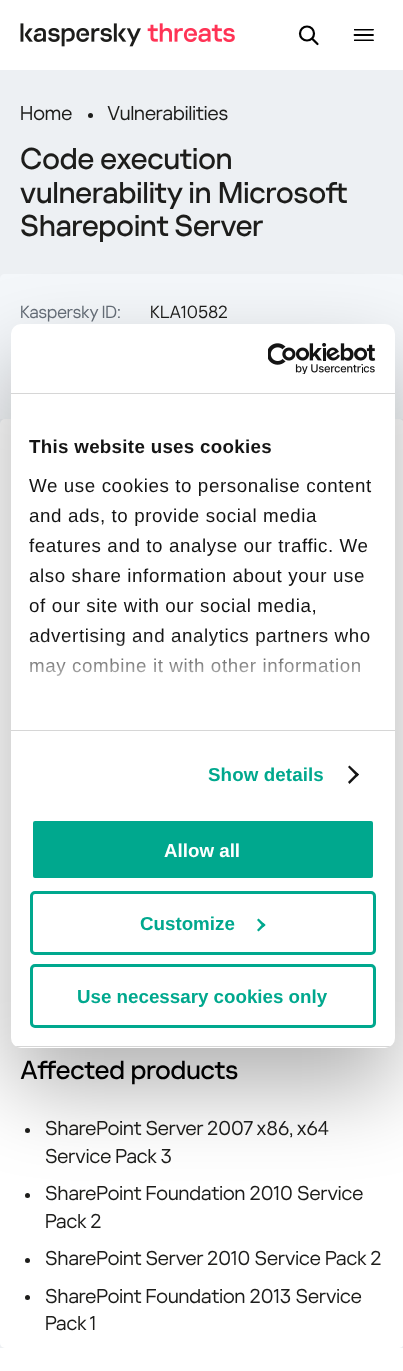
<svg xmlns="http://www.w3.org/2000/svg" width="403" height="1371">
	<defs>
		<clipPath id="clip1"><rect x="354" y="29" width="20" height="12" /></clipPath>
		<linearGradient id="g1" gradientUnits="userSpaceOnUse" x1="194" y1="730" x2="194" y2="637"><stop offset="0" stop-color="#FFFFFF" /><stop offset="0.5" stop-color="#FFFFFF" stop-opacity="0.8" /><stop offset="1" stop-color="#FFFFFF" stop-opacity="0" /></linearGradient>
		<clipPath id="clip2"><rect x="11" y="324" width="384" height="724" rx="10" /></clipPath>
	</defs>
	<rect width="100%" height="100%" fill="#EDF0F3" />
	<rect x="0" y="0" width="403" height="70" fill="#FFFFFF" />
	<image x="20" y="23" width="215" height="24" href="assets/img1.png" />
	<circle cx="307" cy="33.5" r="7" fill="none" stroke="#000000" stroke-width="2.2" />
	<path d="M312.5 39L317.5 44" fill="none" stroke="#000000" stroke-width="2.2" stroke-linecap="round" stroke-linejoin="round" />
	<path d="M354.5 35H373" fill="none" stroke="#000000" stroke-width="1.8" stroke-linecap="round" stroke-linejoin="round" />
	<g clip-path="url(#clip1)">
		<path d="M354.5 40.5H373M354.5 29.5H373" fill="none" stroke="#000000" stroke-width="1.8" stroke-linecap="round" stroke-linejoin="round" />
	</g>
	<text x="20" y="120" font-family="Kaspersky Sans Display" font-size="20" fill="#1D1D1B">Home</text>
	<circle cx="90.5" cy="115.5" r="2.5" fill="#1D1D1B" />
	<text x="107" y="120" font-family="Kaspersky Sans Display" font-size="20" fill="#1D1D1B">Vulnerabilities</text>
	<g font-family="Kaspersky Sans Display" font-size="30" font-weight="500" fill="#1D1D1B">
		<text x="20" y="169">Code execution</text>
		<text x="20" y="203">vulnerability in Microsoft</text>
		<text x="20" y="236">Sharepoint Server</text>
	</g>
	<path d="M5 274H399C402 274 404 276 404 279V419H0V279C0 276 2 274 5 274Z" fill="#F4F7FA" />
	<text x="20" y="318" font-family="Kaspersky Sans Display" font-size="17.5" fill="#676F79">Kaspersky ID:</text>
	<text x="150" y="318" font-family="Kaspersky Sans Display" font-size="17.5" fill="#1D1D1B">KLA10582</text>
	<rect x="0" y="419" width="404" height="929" rx="5" fill="#FFFFFF" />
	<text x="20" y="1079" font-family="Kaspersky Sans Display" font-size="26.25" font-weight="500" fill="#000000">Affected products</text>
	<circle cx="27.5" cy="1130.5" r="2.5" fill="#1D1D1B" />
	<g font-family="Kaspersky Sans Display" font-size="20" fill="#1D1D1B">
		<text x="45" y="1135">SharePoint Server 2007 x86, x64</text>
		<text x="45" y="1163">Service Pack 3</text>
	</g>
	<circle cx="27.5" cy="1195.5" r="2.5" fill="#1D1D1B" />
	<g font-family="Kaspersky Sans Display" font-size="20" fill="#1D1D1B">
		<text x="45" y="1200">SharePoint Foundation 2010 Service</text>
		<text x="45" y="1228">Pack 2</text>
	</g>
	<circle cx="27.5" cy="1260.5" r="2.5" fill="#1D1D1B" />
	<text x="45" y="1265" font-family="Kaspersky Sans Display" font-size="20" fill="#1D1D1B">SharePoint Server 2010 Service Pack 2</text>
	<circle cx="27.5" cy="1297.5" r="2.5" fill="#1D1D1B" />
	<g font-family="Kaspersky Sans Display" font-size="20" fill="#1D1D1B">
		<text x="45" y="1303">SharePoint Foundation 2013 Service</text>
		<text x="45" y="1330">Pack 1</text>
	</g>
	<rect x="0" y="1348" width="403" height="23" fill="#FFFFFF" />
	<rect x="11" y="364" width="384" height="724" rx="10" fill="#000000" fill-opacity="0.3" filter="blur(42.5px)" />
	<rect x="11" y="324" width="384" height="724" rx="10" fill="#FFFFFF" />
	<rect x="11" y="393" width="384" height="1" fill="#D6D6D6" />
	<image x="268" y="343" width="108" height="31" href="assets/img2.png" />
	<rect x="11" y="730" width="384" height="1" fill="#D6D6D6" />
	<text x="29" y="453" font-family="Liberation Sans" font-size="18.75" font-weight="700" letter-spacing="0.3" fill="#141414">This website uses cookies</text>
	<g font-family="Liberation Sans" font-size="18.75" letter-spacing="0.6" fill="#141414">
		<text x="29" y="492">We use cookies to personalise content</text>
		<text x="29" y="522">and ads, to provide social media</text>
		<text x="29" y="552">features and to analyse our traffic. We</text>
		<text x="29" y="582">also share information about your use</text>
		<text x="29" y="612">of our site with our social media,</text>
		<text x="29" y="642">advertising and analytics partners who</text>
		<text x="29" y="672">may combine it with other information</text>
	</g>
	<rect x="29" y="638" width="341" height="38" fill="url(#g1)" />
	<text x="208" y="781" font-family="Liberation Sans" font-size="18.75" font-weight="700" letter-spacing="0.1" fill="#00A88E">Show details</text>
	<path d="M349.5 765.5L359 774.5L357 776.5L348 767Z" fill="#141414" />
	<path d="M357 773L359 774.5L349.5 784L348 782Z" fill="#141414" />
	<g clip-path="url(#clip2)">
		<rect x="11" y="1046" width="384" height="1" fill="#D6D6D6" />
	</g>
	<rect x="31.5" y="819.5" width="343" height="60" rx="3.5" fill="#00A88E" stroke="#FFFFFF" stroke-width="3" />
	<text x="164" y="857" font-family="Liberation Sans" font-size="18.75" font-weight="700" fill="#FFFFFF">Allow all</text>
	<rect x="31.5" y="892.5" width="343" height="61" rx="3.5" fill="none" stroke="#00A88E" stroke-width="3" />
	<text x="140" y="930" font-family="Liberation Sans" font-size="18.75" font-weight="700" fill="#00A88E">Customize</text>
	<path d="M258.5 918.5L265.5 925L263.5 927L257 920Z" fill="#00A88E" />
	<path d="M263.5 923L265.5 925L258.5 931.5L257 930Z" fill="#00A88E" />
	<rect x="31.5" y="965.5" width="343" height="61" rx="3.5" fill="none" stroke="#00A88E" stroke-width="3" />
	<text x="77" y="1003" font-family="Liberation Sans" font-size="18.75" font-weight="700" fill="#00A88E">Use necessary cookies only</text>
</svg>
